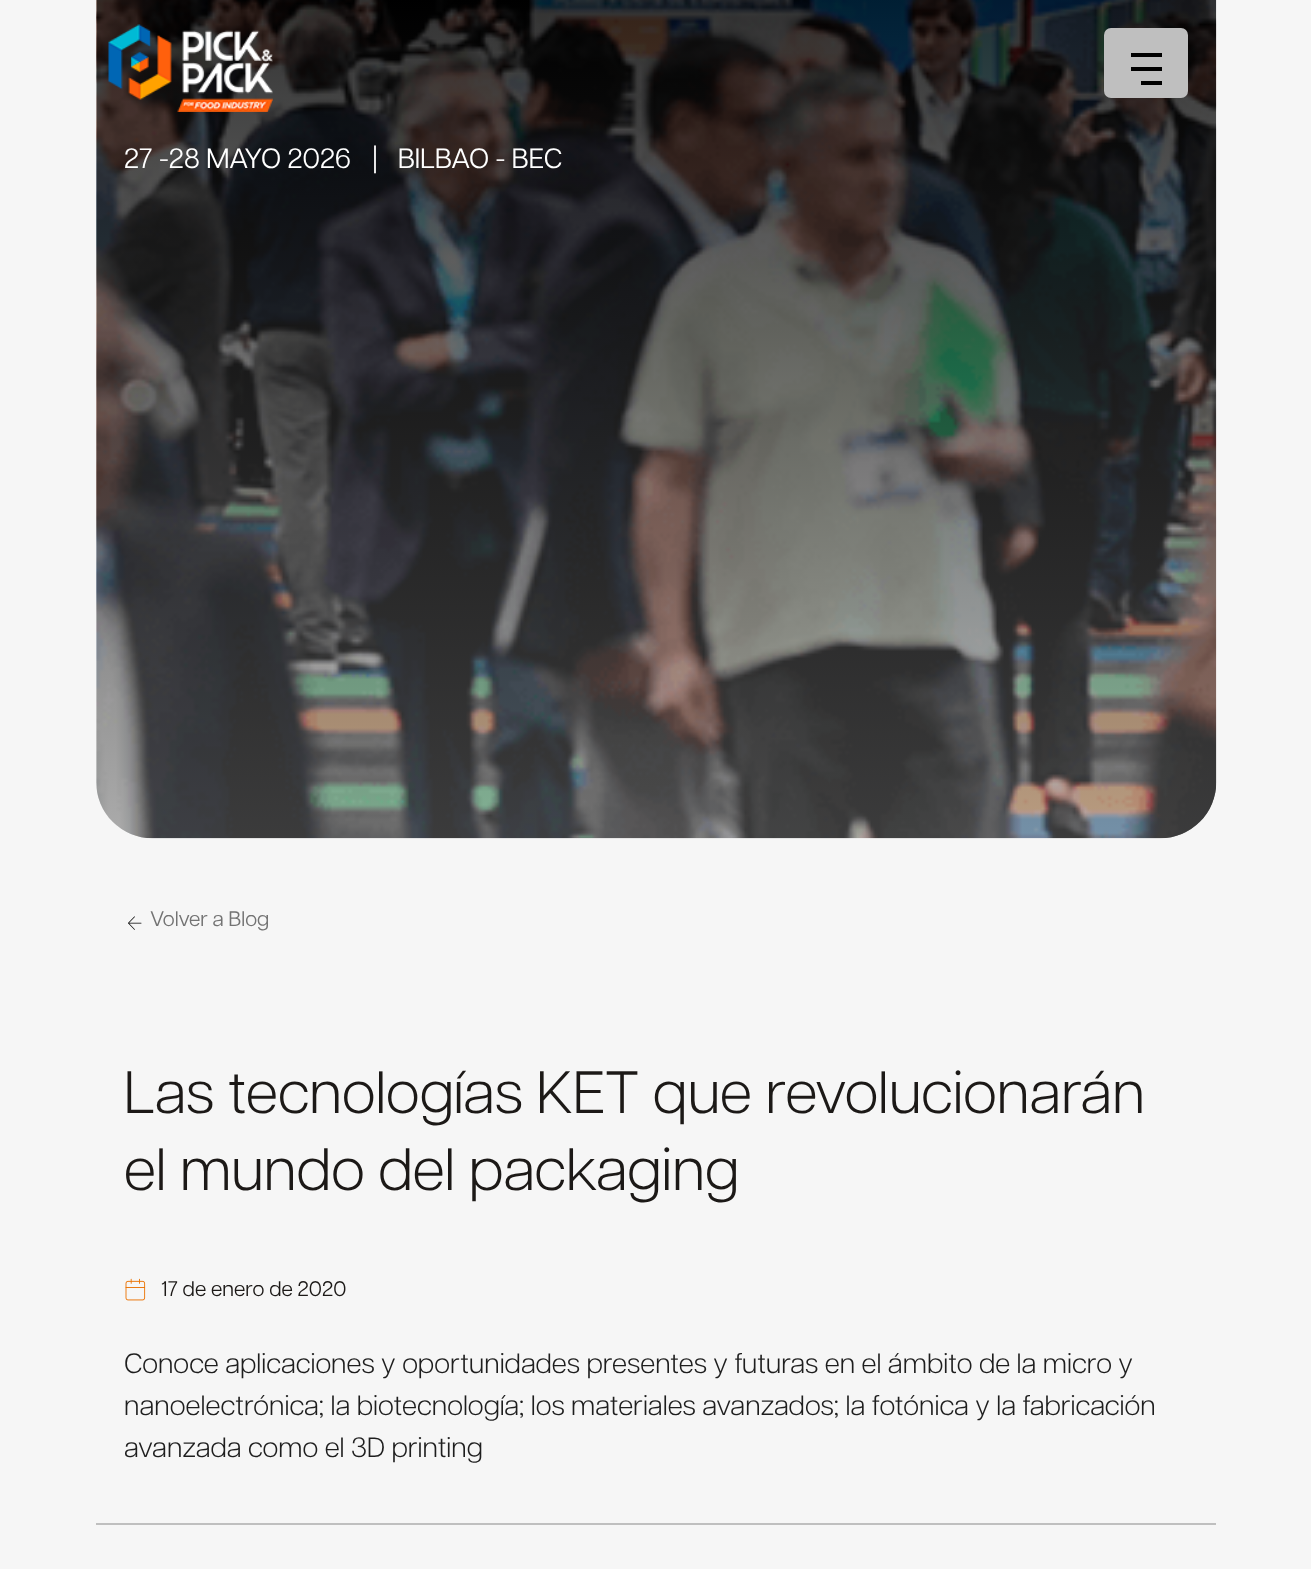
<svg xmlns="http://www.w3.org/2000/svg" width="1311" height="1569">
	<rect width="100%" height="100%" fill="#F6F6F6" />
	<image x="96" y="0" width="1121" height="839" href="assets/img2.png" />
	<image x="108" y="24" width="165" height="88" href="assets/img1.png" />
	<rect x="1104" y="28" width="84" height="70" rx="7" fill="#BFBFBF" />
	<rect x="1131" y="53" width="31" height="4" fill="#000000" />
	<rect x="1131" y="67" width="31" height="4" fill="#000000" />
	<rect x="1141" y="81" width="21" height="4" fill="#000000" />
	<g font-family="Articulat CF" font-size="28" fill="#FFFFFF">
		<text x="124" y="168">27 -28 MAYO 2026</text>
		<text x="372" y="168">|</text>
		<text x="398" y="168">BILBAO - BEC</text>
	</g>
	<image x="128" y="916" width="14" height="14" href="assets/img3.png" />
	<text x="150" y="926" font-family="Articulat CF" font-size="21" fill="#737373">Volver a Blog</text>
	<g font-family="Articulat CF" font-size="59.5" font-weight="300" fill="#1C1917">
		<text x="124" y="1113">Las tecnologías KET que revolucionarán</text>
		<text x="124" y="1190">el mundo del packaging</text>
	</g>
	<image x="125" y="1278" width="21" height="23" href="assets/img4.png" />
	<text x="161" y="1296" font-family="Articulat CF" font-size="21" fill="#1C1917">17 de enero de 2020</text>
	<g font-family="Articulat CF" font-size="28" font-weight="300" fill="#1E1E1E">
		<text x="124" y="1373">Conoce aplicaciones y oportunidades presentes y futuras en el ámbito de la micro y</text>
		<text x="124" y="1415">nanoelectrónica; la biotecnología; los materiales avanzados; la fotónica y la fabricación</text>
		<text x="124" y="1457">avanzada como el 3D printing</text>
	</g>
	<rect x="96" y="1523" width="1120" height="2" fill="#BFBFBF" />
</svg>
